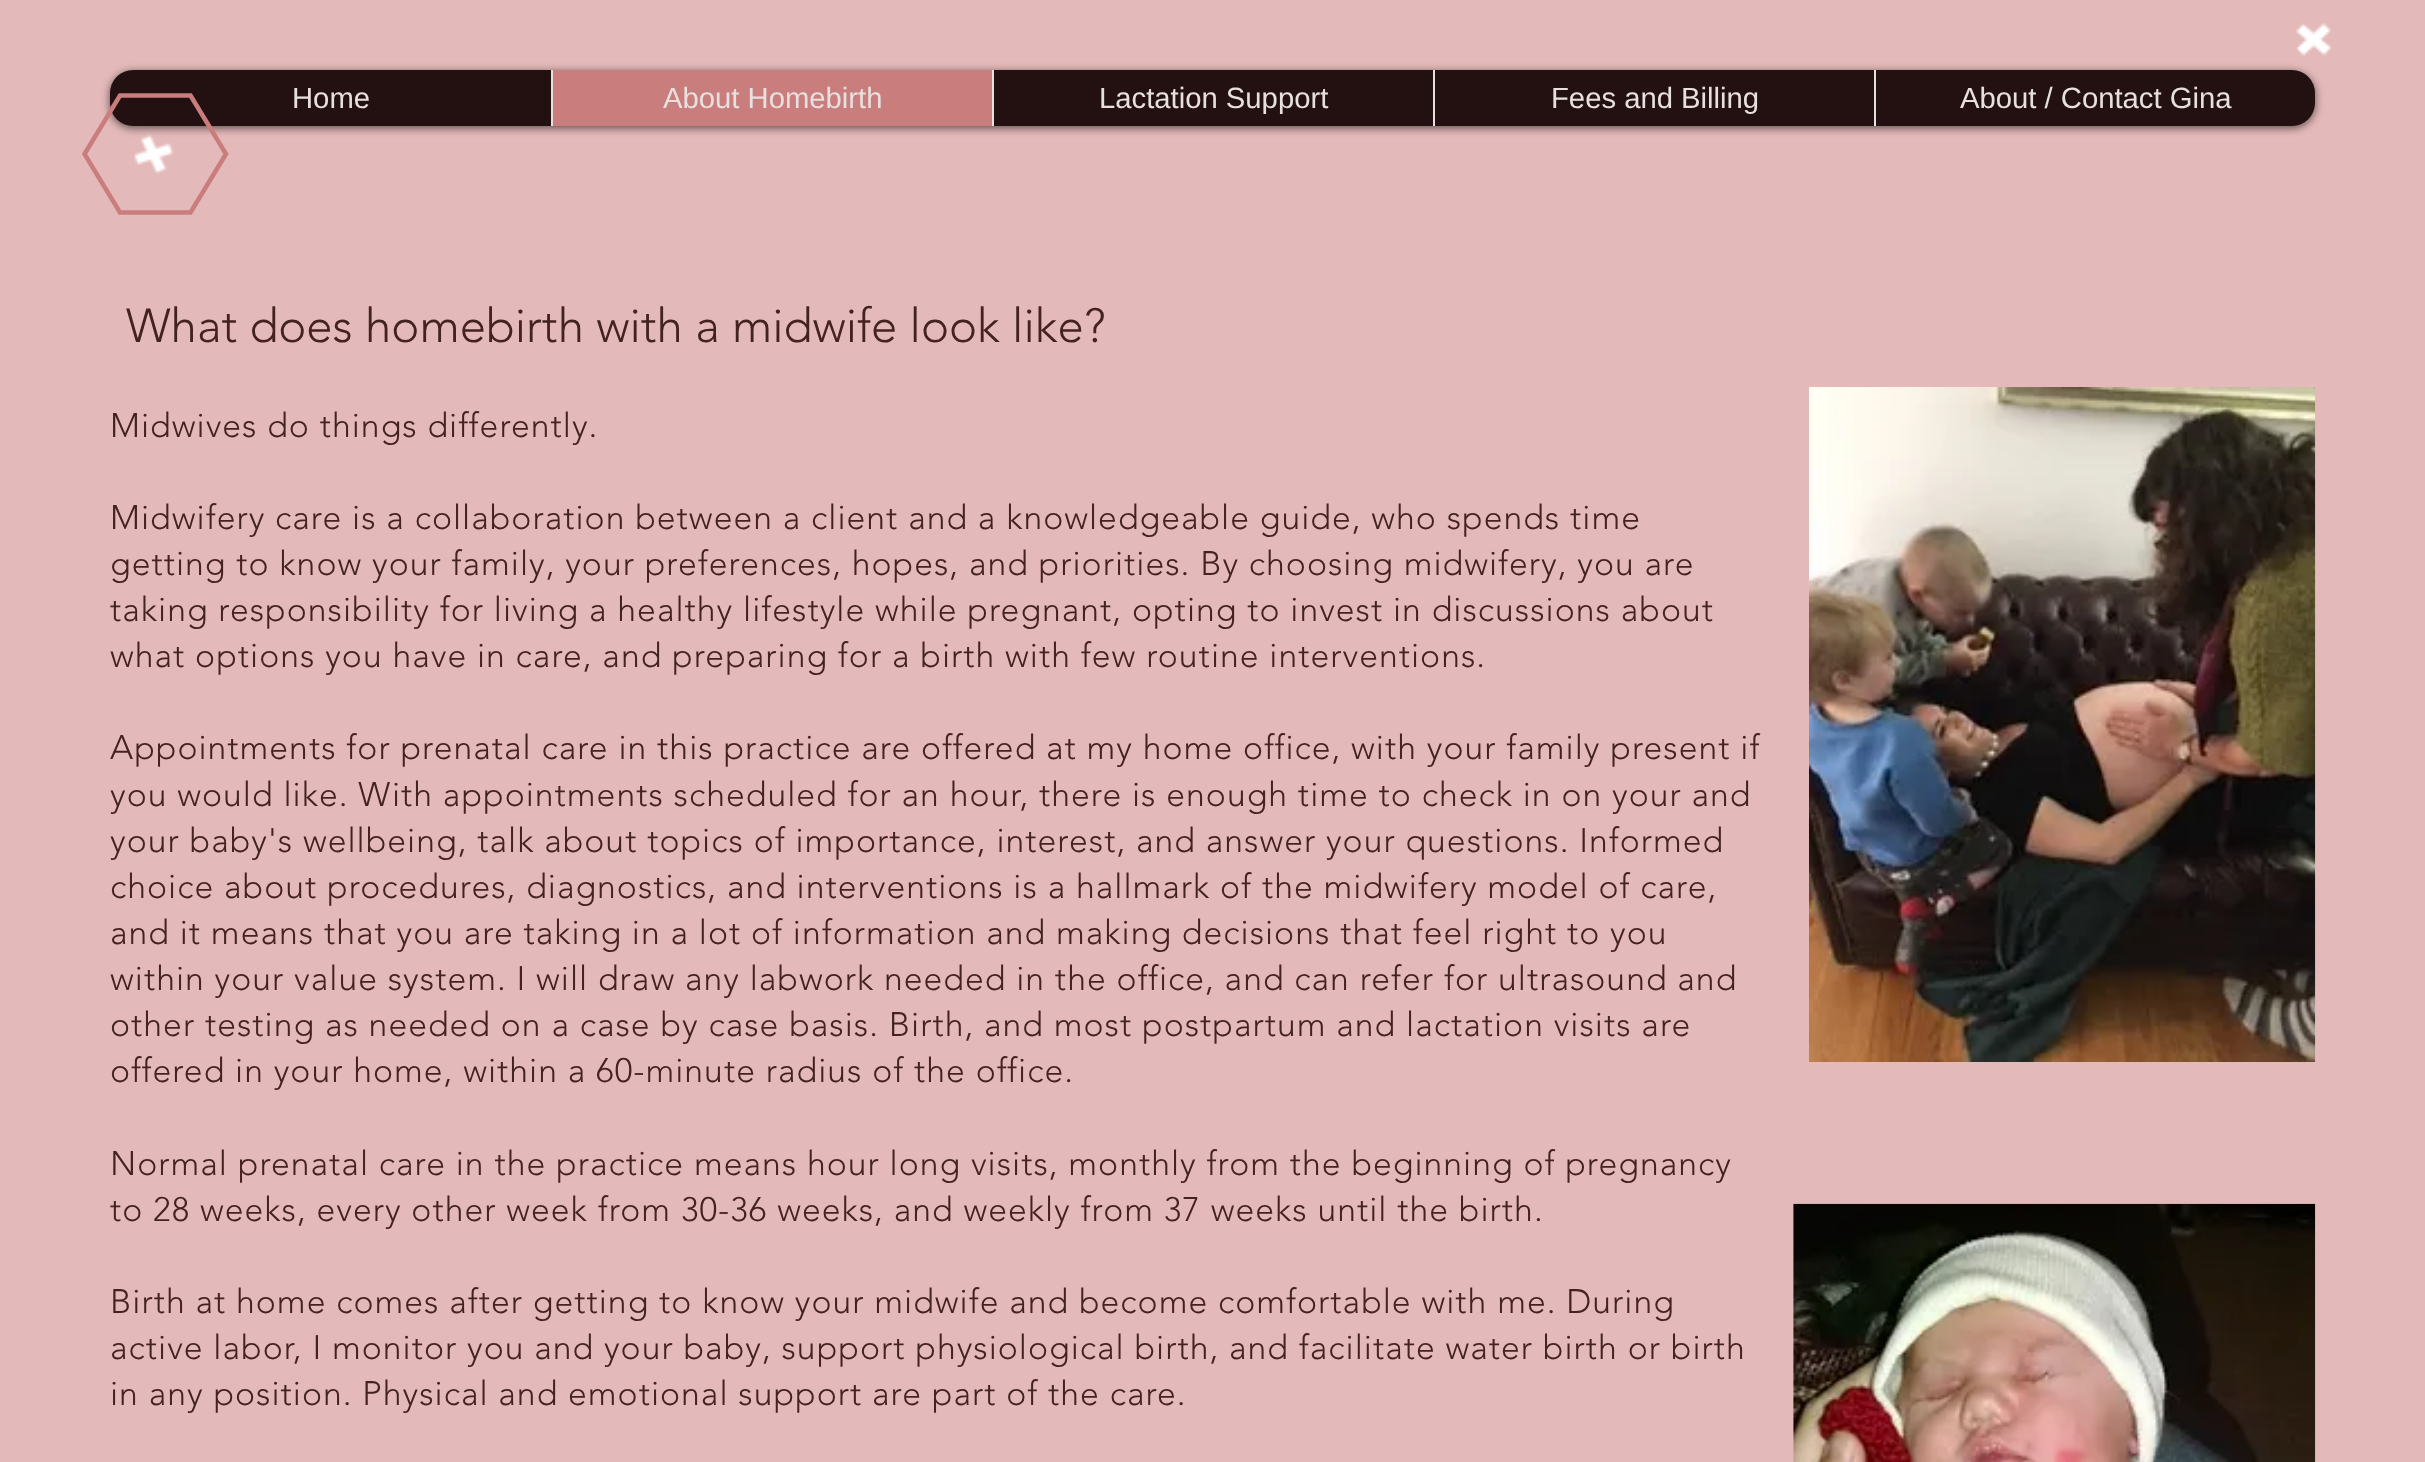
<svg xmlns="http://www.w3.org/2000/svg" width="2425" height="1462">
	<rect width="100%" height="100%" fill="#E4B9B9" />
	<image x="2296" y="23" width="36" height="33" href="assets/img1.png" />
	<rect x="110" y="72" width="2205" height="56" rx="23" fill="#000000" fill-opacity="0.6" filter="blur(4.5px)" />
	<rect x="110" y="70" width="2205" height="56" rx="23" fill="#231111" />
	<path d="M190.5 95.5L226 154L190.5 212.5H120L84.5 154L120 95.5Z" fill="none" stroke="#C97D7D" stroke-width="4.5" />
	<text x="292" y="108" font-family="Liberation Sans" font-size="29.25" fill="#E8DFDF">Home</text>
	<rect x="553" y="70" width="439" height="56" fill="#C97D7D" />
	<rect x="551" y="70" width="2" height="56" fill="#E8DFDF" />
	<text x="663" y="108" font-family="Liberation Sans" font-size="29.25" fill="#E8DFDF">About Homebirth</text>
	<rect x="992" y="70" width="2" height="56" fill="#E8DFDF" />
	<text x="1099" y="108" font-family="Liberation Sans" font-size="29.25" fill="#E8DFDF">Lactation Support</text>
	<rect x="1433" y="70" width="2" height="56" fill="#E8DFDF" />
	<text x="1551" y="108" font-family="Liberation Sans" font-size="29.25" fill="#E8DFDF">Fees and Billing</text>
	<rect x="1874" y="70" width="2" height="56" fill="#E8DFDF" />
	<text x="1960" y="108" font-family="Liberation Sans" font-size="29.25" fill="#E8DFDF">About / Contact Gina</text>
	<image x="134" y="134" width="40" height="40" href="assets/img2.png" />
	<text x="126" y="342" font-family="'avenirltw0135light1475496'" font-size="47.25" font-weight="300" fill="#452222">What does homebirth with a midwife look like?</text>
	<g font-family="'avenirltw0135light1475496'" font-size="33.75" font-weight="300" letter-spacing="1.01" fill="#452222">
		<text x="110" y="437">Midwives do things differently.</text>
		<text x="110" y="529">Midwifery care is a collaboration between a client and a knowledgeable guide, who spends time</text>
		<text x="110" y="575">getting to know your family, your preferences, hopes, and priorities. By choosing midwifery, you are</text>
		<text x="110" y="621">taking responsibility for living a healthy lifestyle while pregnant, opting to invest in discussions about</text>
		<text x="110" y="667">what options you have in care, and preparing for a birth with few routine interventions.</text>
		<text x="110" y="759">Appointments for prenatal care in this practice are offered at my home office, with your family present if</text>
		<text x="110" y="806">you would like. With appointments scheduled for an hour, there is enough time to check in on your and</text>
		<text x="110" y="852">your baby's wellbeing, talk about topics of importance, interest, and answer your questions. Informed</text>
		<text x="110" y="898">choice about procedures, diagnostics, and interventions is a hallmark of the midwifery model of care,</text>
		<text x="110" y="944">and it means that you are taking in a lot of information and making decisions that feel right to you</text>
		<text x="110" y="990">within your value system. I will draw any labwork needed in the office, and can refer for ultrasound and</text>
		<text x="110" y="1036">other testing as needed on a case by case basis. Birth, and most postpartum and lactation visits are</text>
		<text x="110" y="1082">offered in your home, within a 60-minute radius of the office.</text>
		<text x="110" y="1175">Normal prenatal care in the practice means hour long visits, monthly from the beginning of pregnancy</text>
		<text x="110" y="1221">to 28 weeks, every other week from 30-36 weeks, and weekly from 37 weeks until the birth.</text>
		<text x="110" y="1313">Birth at home comes after getting to know your midwife and become comfortable with me. During</text>
		<text x="110" y="1359">active labor, I monitor you and your baby, support physiological birth, and facilitate water birth or birth</text>
		<text x="110" y="1405">in any position. Physical and emotional support are part of the care.</text>
	</g>
	<image x="1809" y="387" width="507" height="675" href="assets/img3.png" />
	<image x="1793" y="1203" width="523" height="259" href="assets/img4.png" />
</svg>
